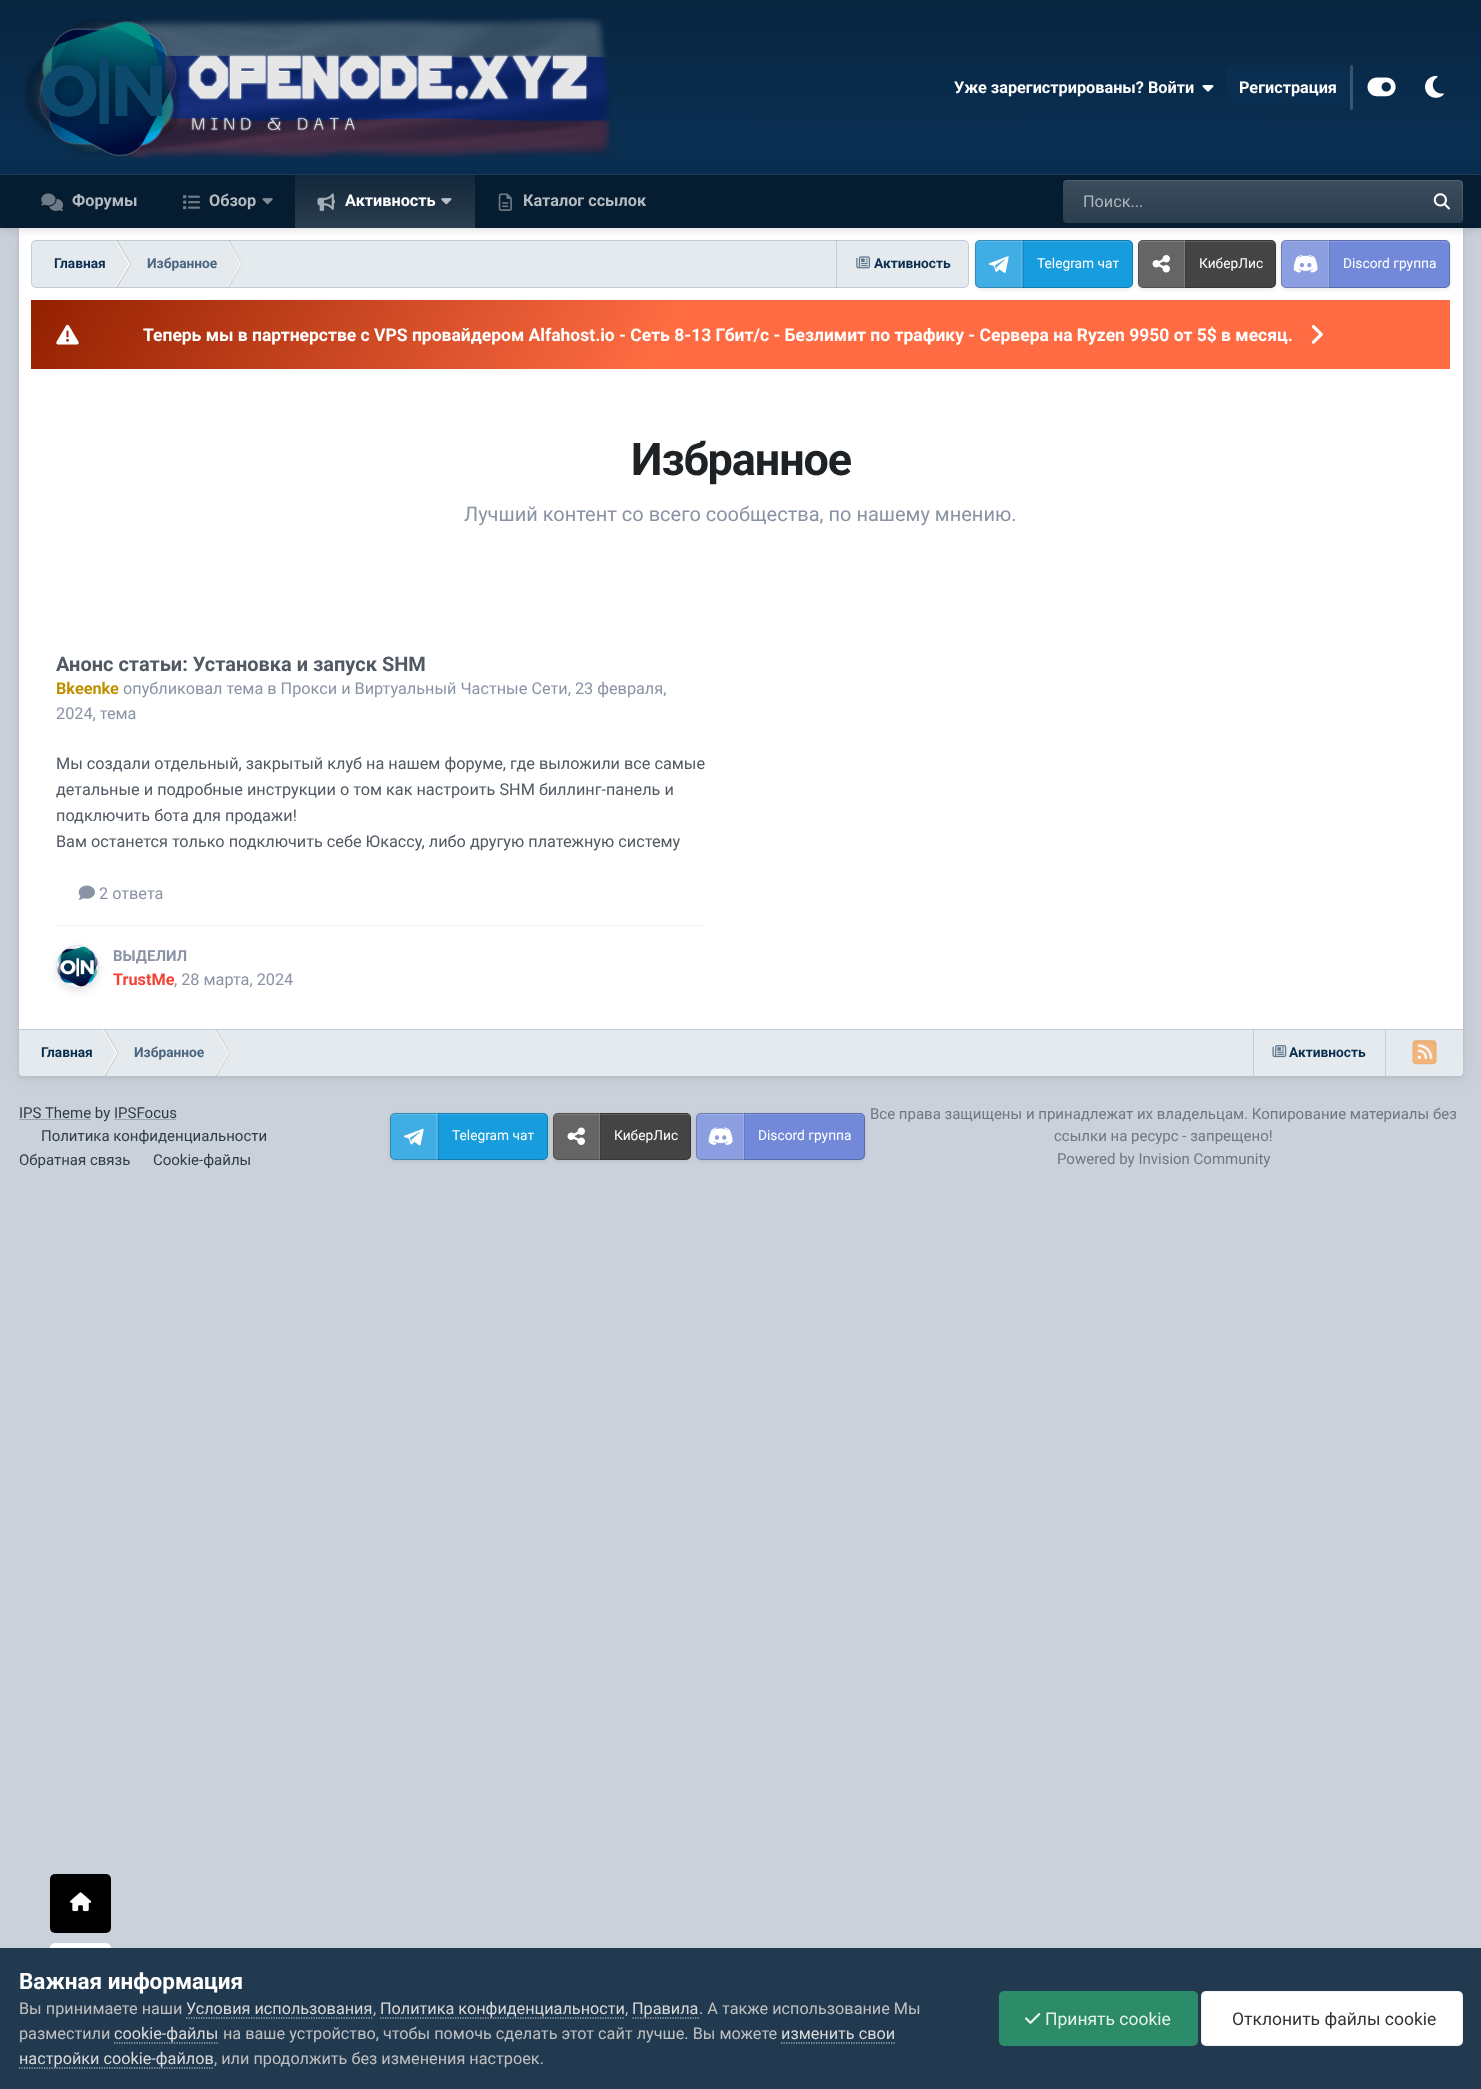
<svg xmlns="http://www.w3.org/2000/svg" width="1481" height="2089">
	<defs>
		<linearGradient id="g1" gradientUnits="userSpaceOnUse" x1="741" y1="0" x2="741" y2="175"><stop offset="0" stop-color="#082540" /><stop offset="0.7" stop-color="#0A2E50" /></linearGradient>
		<linearGradient id="g2" gradientUnits="userSpaceOnUse" x1="385" y1="175" x2="385" y2="228"><stop offset="0" stop-color="#12273A" /><stop offset="1" stop-color="#2B3E4F" /></linearGradient>
		<linearGradient id="g3" gradientUnits="userSpaceOnUse" x1="1263" y1="180" x2="1263" y2="223"><stop offset="0" stop-color="#FFFFFF" stop-opacity="0.08" /><stop offset="1" stop-color="#FFFFFF" stop-opacity="0" /></linearGradient>
		<linearGradient id="g4" gradientUnits="userSpaceOnUse" x1="194" y1="19" x2="1288" y2="650"><stop offset="0" stop-color="#932000" /><stop offset="0.45" stop-color="#FF6C43" /></linearGradient>
		<clipPath id="clip1"><path d="M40 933H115V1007H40ZM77.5 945C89.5 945 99 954.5 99 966.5C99 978.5 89.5 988 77.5 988C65.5 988 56 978.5 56 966.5C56 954.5 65.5 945 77.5 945Z" clip-rule="evenodd" /></clipPath>
	</defs>
	<rect width="100%" height="100%" fill="#CBD1DA" />
	<rect x="0" y="0" width="1481" height="174" fill="url(#g1)" />
	<image x="24" y="17" width="588" height="141" href="assets/img1.png" />
	<text x="954" y="93" font-family="Roboto" font-size="16.25" font-weight="700" fill="#FFFFFF">Уже зарегистрированы? Войти</text>
	<image x="1202" y="85" width="12" height="7" href="assets/img2.png" />
	<rect x="1226" y="65" width="124" height="45" rx="5" fill="#0A2E50" />
	<text x="1239" y="93" font-family="Roboto" font-size="16.25" font-weight="700" fill="#FFFFFF">Регистрация</text>
	<rect x="1350" y="65" width="3" height="45" rx="1.5" fill="#FFFFFF" fill-opacity="0.2" />
	<image x="1367" y="77" width="29" height="20" href="assets/img3.png" />
	<image x="1425" y="75" width="19" height="23" href="assets/img4.png" />
	<rect x="19" y="229" width="1444" height="849" rx="4" fill="#000000" fill-opacity="0.08" filter="blur(2px)" />
	<rect x="19" y="228" width="1444" height="848" rx="4" fill="#000000" fill-opacity="0.06" filter="blur(12.5px)" />
	<path d="M19 228H1463V1072C1463 1074 1461 1076 1459 1076H23C21 1076 19 1074 19 1072Z" fill="#FFFFFF" />
	<rect x="31" y="240" width="938" height="48" rx="5" fill="#E4EAEE" />
	<path d="M115 240H116L130 264H128.5Z" fill="#FFFFFF" />
	<path d="M116 240H117.5L131 264H130Z" fill="#515963" fill-opacity="0.2" />
	<path d="M115 287.5H116L130 264H128.5Z" fill="#FFFFFF" />
	<path d="M116 287.5H117.5L131 264H130Z" fill="#515963" fill-opacity="0.2" />
	<path d="M226.5 240H227.5L241.5 264H240Z" fill="#F7F9FA" />
	<path d="M227.5 240H229L242.5 264H241.5Z" fill="#7D858D" fill-opacity="0.2" />
	<path d="M226.5 287.5H227.5L241.5 264H240Z" fill="#F7F9FA" />
	<path d="M227.5 287.5H229L242.5 264H241.5Z" fill="#7D858D" fill-opacity="0.2" />
	<rect x="836" y="240" width="1" height="48" fill="#C7CDD2" />
	<image x="856" y="256" width="14" height="13" href="assets/img12.png" />
	<rect x="31.5" y="240.5" width="937" height="47" rx="4.5" fill="none" stroke="#515963" stroke-opacity="0.2" />
	<rect x="975" y="241" width="158" height="48" rx="5" fill="#000000" fill-opacity="0.1" filter="blur(2px)" />
	<rect x="975" y="240" width="158" height="48" rx="5" fill="#179CDE" />
	<path d="M978 288H980H1024V240H1022V288Z" fill="#158CC8" />
	<path d="M980 240H1023V288H980C977 288 975 286 975 283V245C975 242 977 240 980 240Z" fill="#FFFFFF" fill-opacity="0.18" />
	<rect x="1021" y="240" width="1" height="48" fill="#5DBAE8" />
	<path d="M980 242C978 242 976 244 976 246C976 244 977 242 979 241H1128C1130 242 1131 244 1131 246C1131 244 1130 242 1128 242Z" fill="#FFFFFF" fill-opacity="0.15" />
	<image x="989" y="256" width="20" height="17" href="assets/img13.png" />
	<rect x="975.5" y="240.5" width="157" height="47" rx="4.5" fill="none" stroke="#000000" stroke-opacity="0.2" />
	<rect x="1138" y="241" width="138" height="48" rx="5" fill="#000000" fill-opacity="0.1" filter="blur(2px)" />
	<rect x="1138" y="240" width="138" height="48" rx="5" fill="#444444" />
	<path d="M1141 288H1143H1186V240H1185V288Z" fill="#3D3D3D" />
	<path d="M1143 240H1185V288H1143C1140 288 1138 286 1138 283V245C1138 242 1140 240 1143 240Z" fill="#FFFFFF" fill-opacity="0.18" />
	<rect x="1184" y="240" width="1" height="48" fill="#7D7D7D" />
	<path d="M1142 242C1140 242 1139 244 1139 246V245C1139 243 1141 241 1143 241H1271C1273 241 1275 243 1275 245V246C1275 244 1273 242 1271 242Z" fill="#FFFFFF" fill-opacity="0.15" />
	<image x="1152" y="255" width="18" height="18" href="assets/img14.png" />
	<rect x="1138.5" y="240.5" width="137" height="47" rx="4.5" fill="none" stroke="#000000" stroke-opacity="0.2" />
	<rect x="1281" y="241" width="169" height="48" rx="5" fill="#000000" fill-opacity="0.1" filter="blur(2px)" />
	<rect x="1281" y="240" width="169" height="48" rx="5" fill="#7289DA" />
	<path d="M1284 288H1286H1330V240H1329V288Z" fill="#677BC4" />
	<path d="M1286 240H1329V288H1286C1283 288 1281 286 1281 283V245C1281 242 1283 240 1286 240Z" fill="#FFFFFF" fill-opacity="0.18" />
	<rect x="1328" y="240" width="1" height="48" fill="#9DADE5" />
	<path d="M1286 242L1284 243L1285 241H1445L1448 242C1449 243 1449 245 1449 246C1449 244 1447 242 1445 242Z" fill="#FFFFFF" fill-opacity="0.15" />
	<image x="1293" y="255" width="25" height="18" href="assets/img15.png" />
	<rect x="1281.5" y="240.5" width="168" height="47" rx="4.5" fill="none" stroke="#000000" stroke-opacity="0.2" />
	<rect x="0" y="176" width="1481" height="53" fill="#000000" fill-opacity="0.15" filter="blur(4.5px)" />
	<rect x="0" y="174" width="1481" height="1" fill="#1D3C5A" />
	<rect x="0" y="175" width="1481" height="53" fill="#061C30" />
	<image x="41" y="193" width="23" height="18" href="assets/img5.png" />
	<text x="72" y="206" font-family="Roboto" font-size="16.25" font-weight="700" fill="#B4BBC1">Форумы</text>
	<image x="183" y="195" width="17" height="15" href="assets/img6.png" />
	<text x="209" y="206" font-family="Roboto" font-size="16.25" font-weight="700" fill="#B4BBC1">Обзор</text>
	<image x="262" y="198" width="11" height="7" href="assets/img7.png" />
	<rect x="295" y="175" width="180" height="53" fill="url(#g2)" />
	<image x="317" y="193" width="18" height="18" href="assets/img8.png" />
	<text x="345" y="206" font-family="Roboto" font-size="16.25" font-weight="700" fill="#FFFFFF">Активность</text>
	<image x="441" y="198" width="11" height="7" href="assets/img9.png" />
	<image x="498" y="193" width="14" height="18" href="assets/img10.png" />
	<text x="523" y="206" font-family="Roboto" font-size="16.25" font-weight="700" fill="#B4BBC1">Каталог ссылок</text>
	<rect x="1063" y="180" width="400" height="43" rx="4" fill="#2B3E4F" />
	<rect x="1063" y="180" width="400" height="43" rx="4" fill="url(#g3)" />
	<path d="M1066 181H1459C1461 181 1462 183 1462 185V222C1462 221 1463 220 1463 219V184C1463 182 1461 180 1459 180H1067C1066 180 1064 181 1064 182Z" fill="#FFFFFF" fill-opacity="0.1" />
	<text x="1083" y="207" font-family="Roboto" font-size="16.25" fill="#ADB5BB">Поиск...</text>
	<image x="1433" y="193" width="17" height="17" href="assets/img11.png" />
	<text x="54" y="268" font-family="Roboto" font-size="13.75" font-weight="700" fill="#0A2E50">Главная</text>
	<text x="147" y="268" font-family="Roboto" font-size="13.75" font-weight="700" fill="#4B667F">Избранное</text>
	<text x="874" y="268" font-family="Roboto" font-size="13.75" font-weight="700" fill="#0A2E50">Активность</text>
	<g font-family="Roboto" font-size="13.75" fill="#FFFFFF">
		<text x="1037" y="268">Telegram чат</text>
		<text x="1199" y="268">КиберЛис</text>
		<text x="1343" y="268">Discord группа</text>
	</g>
	<rect x="31" y="300" width="1419" height="69" fill="url(#g4)" />
	<image x="56" y="324" width="23" height="21" href="assets/img16.png" />
	<text x="143" y="341" font-family="Roboto" font-size="17.5" font-weight="700" fill="#FFFFFF">Теперь мы в партнерстве с VPS провайдером Alfahost.io - Сеть 8-13 Гбит/c - Безлимит по трафику - Сервера на Ryzen 9950 от 5$ в месяц.</text>
	<image x="1311" y="325" width="12" height="19" href="assets/img17.png" />
	<text x="631" y="475" font-family="Roboto" font-size="45" font-weight="700" letter-spacing="-1.1" fill="#1E2225">Избранное</text>
	<text x="464" y="521" font-family="Roboto" font-size="20" fill="#8A93A4">Лучший контент со всего сообщества, по нашему мнению.</text>
	<text x="56" y="671" font-family="Roboto" font-size="20" font-weight="700" fill="#515963">Анонс статьи: Установка и запуск SHM</text>
	<text x="56" y="694" font-family="Roboto" font-size="16.25" font-weight="700" fill="#BF9000">Bkeenke</text>
	<g font-family="Roboto" font-size="16.25" fill="#8A93A4">
		<text x="123" y="694">опубликовал тема в Прокси и Виртуальный Частные Сети, 23 февраля,</text>
		<text x="56" y="719">2024, тема</text>
	</g>
	<g font-family="Roboto" font-size="16.25" fill="#515963">
		<text x="56" y="769">Мы создали отдельный, закрытый клуб на нашем форуме, где выложили все самые</text>
		<text x="56" y="795">детальные и подробные инструкции о том как настроить SHM биллинг-панель и</text>
		<text x="56" y="821">подключить бота для продажи!</text>
		<text x="56" y="847">Вам останется только подключить себе Юкассу, либо другую платежную систему</text>
	</g>
	<image x="78" y="885" width="17" height="15" href="assets/img18.png" />
	<text x="99" y="899" font-family="Roboto" font-size="16.25" fill="#8A93A4">2 ответа</text>
	<rect x="56" y="925" width="650" height="1" fill="#F1F2F3" />
	<image x="57" y="946" width="41" height="41" href="assets/img19.png" />
	<g clip-path="url(#clip1)">
		<rect x="56" y="949" width="43" height="42" rx="21" fill="#000000" fill-opacity="0.1" filter="blur(5px)" />
	</g>
	<circle cx="77.5" cy="966.5" r="21" fill="none" stroke="#8A93A4" stroke-opacity="0.3" />
	<text x="113" y="961" font-family="Roboto" font-size="15" font-weight="700" fill="#8A93A4">ВЫДЕЛИЛ</text>
	<text x="113" y="985" font-family="Roboto" font-size="16.25" font-weight="700" fill="#F44336">TrustMe</text>
	<text x="174" y="985" font-family="Roboto" font-size="16.25" fill="#8A93A4">, 28 марта, 2024</text>
	<path d="M19 1029H1463V1072C1463 1074 1461 1076 1459 1076H23C21 1076 19 1074 19 1072Z" fill="#E4EAEE" />
	<path d="M102.5 1029H103.5L117.5 1053H116Z" fill="#FFFFFF" />
	<path d="M103.5 1029H105L118.5 1053H117.5Z" fill="#515963" fill-opacity="0.2" />
	<path d="M214 1029H215L229 1053H227.5Z" fill="#F7F9FA" />
	<path d="M215 1029H216.5L230 1053H229Z" fill="#7D858D" fill-opacity="0.2" />
	<rect x="1253" y="1029" width="1" height="47" fill="#C7CDD2" />
	<rect x="1385" y="1029" width="1" height="47" fill="#C7CDD2" />
	<rect x="19" y="1029" width="1444" height="1" fill="#515963" fill-opacity="0.2" />
	<text x="41" y="1057" font-family="Roboto" font-size="13.75" font-weight="700" fill="#0A2E50">Главная</text>
	<path d="M104 1076L117.5 1053H116L103 1076Z" fill="#FFFFFF" />
	<path d="M105.5 1076L118.5 1053H117.5L104 1076Z" fill="#515963" fill-opacity="0.2" />
	<text x="134" y="1057" font-family="Roboto" font-size="13.75" font-weight="700" fill="#4B667F">Избранное</text>
	<path d="M215.5 1076L229 1053H227.5L214.5 1076Z" fill="#F7F9FA" />
	<path d="M217 1076L230 1053H229L215.5 1076Z" fill="#7D858D" fill-opacity="0.2" />
	<image x="1272" y="1045" width="15" height="13" href="assets/img20.png" />
	<text x="1289" y="1057" font-family="Roboto" font-size="13.75" font-weight="700" fill="#0A2E50">Активность</text>
	<rect x="1414" y="1043" width="20" height="20" rx="4" fill="#F4F7F8" />
	<image x="1412" y="1040" width="25" height="25" href="assets/img21.png" />
	<rect x="19" y="1119" width="72" height="1" fill="#9CA5AF" />
	<text x="19" y="1118" font-family="Roboto" font-size="15" fill="#2E3D4A">IPS Theme by IPSFocus</text>
	<rect x="114" y="1119" width="62" height="1" fill="#9CA5AF" />
	<g font-family="Roboto" font-size="15" fill="#2E3D4A">
		<text x="41" y="1141">Политика конфиденциальности</text>
		<text x="19" y="1165">Обратная связь</text>
		<text x="153" y="1165">Cookie-файлы</text>
	</g>
	<rect x="390" y="1114" width="158" height="47" rx="5" fill="#000000" fill-opacity="0.1" filter="blur(2px)" />
	<rect x="390" y="1113" width="158" height="47" rx="5" fill="#179CDE" />
	<rect x="438" y="1113" width="1" height="47" fill="#158CC8" />
	<path d="M395 1113H438V1160H395C392 1160 390 1158 390 1155V1118C390 1115 392 1113 395 1113Z" fill="#FFFFFF" fill-opacity="0.18" />
	<image x="404" y="1128" width="20" height="18" href="assets/img22.png" />
	<rect x="436" y="1113" width="1" height="47" fill="#5DBAE8" />
	<path d="M395 1115C393 1115 391 1117 391 1119C391 1117 392 1115 394 1114H543C545 1115 546 1117 546 1119C546 1117 545 1115 542 1115Z" fill="#FFFFFF" fill-opacity="0.15" />
	<rect x="390.5" y="1113.5" width="157" height="46" rx="4.5" fill="none" stroke="#000000" stroke-opacity="0.2" />
	<text x="452" y="1140" font-family="Roboto" font-size="13.75" fill="#FFFFFF">Telegram чат</text>
	<rect x="553" y="1114" width="138" height="47" rx="5" fill="#000000" fill-opacity="0.1" filter="blur(2px)" />
	<rect x="553" y="1113" width="138" height="47" rx="5" fill="#444444" />
	<rect x="600" y="1113" width="1" height="47" fill="#3D3D3D" />
	<path d="M558 1113H600V1160H558C555 1160 553 1158 553 1155V1118C553 1115 555 1113 558 1113Z" fill="#FFFFFF" fill-opacity="0.18" />
	<rect x="599" y="1113" width="1" height="47" fill="#7D7D7D" />
	<image x="567" y="1127" width="18" height="18" href="assets/img23.png" />
	<path d="M558 1115C555 1115 554 1117 554 1119V1118C554 1116 556 1114 558 1114H686C688 1114 690 1116 690 1118V1119C690 1117 688 1115 686 1115Z" fill="#FFFFFF" fill-opacity="0.15" />
	<rect x="553.5" y="1113.5" width="137" height="46" rx="4.5" fill="none" stroke="#000000" stroke-opacity="0.2" />
	<text x="614" y="1140" font-family="Roboto" font-size="13.75" fill="#FFFFFF">КиберЛис</text>
	<rect x="696" y="1114" width="169" height="47" rx="5" fill="#000000" fill-opacity="0.1" filter="blur(2px)" />
	<rect x="696" y="1113" width="169" height="47" rx="5" fill="#7289DA" />
	<rect x="744" y="1113" width="1" height="47" fill="#677BC4" />
	<path d="M701 1113H744V1160H701C698 1160 696 1158 696 1155V1118C696 1115 698 1113 701 1113Z" fill="#FFFFFF" fill-opacity="0.18" />
	<image x="708" y="1127" width="25" height="18" href="assets/img24.png" />
	<rect x="743" y="1113" width="1" height="47" fill="#9DADE5" />
	<path d="M701 1115C699 1115 698 1117 698 1119V1118C698 1116 700 1114 702 1114H860C862 1114 864 1116 864 1118V1119C864 1117 862 1115 860 1115Z" fill="#FFFFFF" fill-opacity="0.15" />
	<rect x="696.5" y="1113.5" width="168" height="46" rx="4.5" fill="none" stroke="#000000" stroke-opacity="0.2" />
	<text x="758" y="1140" font-family="Roboto" font-size="13.75" fill="#FFFFFF">Discord группа</text>
	<g font-family="Roboto" font-size="15" fill="#6D7884">
		<text x="870" y="1119">Все права защищены и принадлежат их владельцам. Копирование материалы без</text>
		<text x="1054" y="1141">ссылки на ресурс - запрещено!</text>
		<text x="1057" y="1164">Powered by Invision Community</text>
	</g>
	<rect x="50" y="1874" width="61" height="59" rx="5" fill="#000000" />
	<image x="70" y="1892" width="22" height="20" href="assets/img25.png" />
	<rect x="50" y="1943" width="61" height="57" rx="5" fill="#FFFFFF" />
	<rect x="0" y="1948" width="1481" height="141" fill="#223A50" />
	<text x="19" y="1989" font-family="Roboto" font-size="22.5" font-weight="700" fill="#FFFFFF">Важная информация</text>
	<text x="19" y="2014" font-family="Roboto" font-size="16.25" fill="#C0C0C0">Вы принимаете наши</text>
	<text x="186" y="2014" font-family="Roboto" font-size="16.25" fill="#DADADA">Условия использования</text>
	<path d="M186 2018H372.5" fill="none" stroke="#DADADA" stroke-width="1.2" stroke-dasharray="1.25 1.25" />
	<text x="373" y="2014" font-family="Roboto" font-size="16.25" fill="#C0C0C0">,</text>
	<path d="M380 2018H625" fill="none" stroke="#DADADA" stroke-width="1.2" stroke-dasharray="1.25 1.25" />
	<text x="380" y="2014" font-family="Roboto" font-size="16.25" fill="#DADADA">Политика конфиденциальности</text>
	<text x="625" y="2014" font-family="Roboto" font-size="16.25" fill="#C0C0C0">,</text>
	<path d="M632.5 2018H699" fill="none" stroke="#DADADA" stroke-width="1.2" stroke-dasharray="1.25 1.25" />
	<text x="632" y="2014" font-family="Roboto" font-size="16.25" fill="#DADADA">Правила</text>
	<g font-family="Roboto" font-size="16.25" fill="#C0C0C0">
		<text x="699" y="2014">. А также использование Мы</text>
		<text x="19" y="2039">разместили</text>
	</g>
	<path d="M114 2043H219" fill="none" stroke="#DADADA" stroke-width="1.2" stroke-dasharray="1.25 1.25" />
	<text x="114" y="2039" font-family="Roboto" font-size="16.25" fill="#DADADA">cookie-файлы</text>
	<text x="223" y="2039" font-family="Roboto" font-size="16.25" fill="#C0C0C0">на ваше устройство, чтобы помочь сделать этот сайт лучше. Вы можете</text>
	<text x="781" y="2039" font-family="Roboto" font-size="16.25" fill="#DADADA">изменить свои</text>
	<path d="M781 2043H895" fill="none" stroke="#DADADA" stroke-width="1.2" stroke-dasharray="1.25 1.25" />
	<path d="M19 2068H214" fill="none" stroke="#DADADA" stroke-width="1.2" stroke-dasharray="1.25 1.25" />
	<text x="19" y="2064" font-family="Roboto" font-size="16.25" fill="#DADADA">настройки cookie-файлов</text>
	<text x="214" y="2064" font-family="Roboto" font-size="16.25" fill="#C0C0C0">, или продолжить без изменения настроек.</text>
	<rect x="999" y="1991" width="199" height="55" rx="5" fill="#2C8C69" />
	<image x="1025" y="2013" width="16" height="11" href="assets/img26.png" />
	<text x="1045" y="2025" font-family="Roboto" font-size="17.5" fill="#E3F3EC">Принять cookie</text>
	<rect x="1201" y="1991" width="262" height="55" rx="5" fill="#FFFFFF" />
	<rect x="1201.5" y="1991.5" width="261" height="54" rx="4.5" fill="none" stroke="#333333" stroke-opacity="0.07" />
	<text x="1232" y="2025" font-family="Roboto" font-size="17.5" fill="#333333">Отклонить файлы сookie</text>
</svg>
